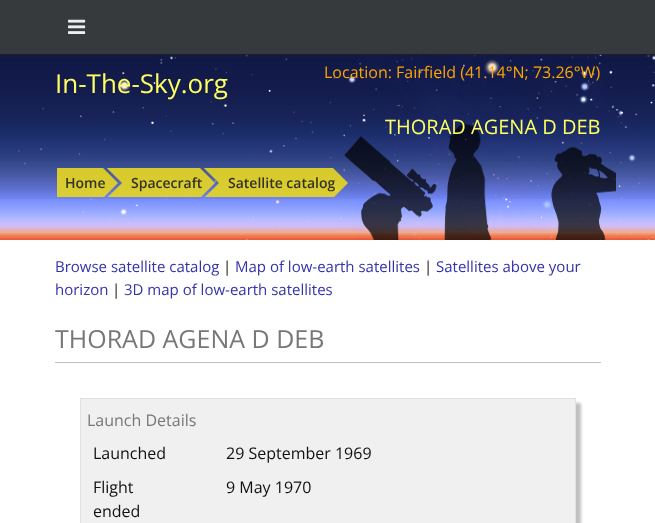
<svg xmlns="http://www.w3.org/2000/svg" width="655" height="523">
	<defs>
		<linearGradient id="g1" gradientUnits="userSpaceOnUse" x1="328" y1="0" x2="328" y2="240"><stop offset="0" stop-color="#10173D" /><stop offset="0.25" stop-color="#101946" /><stop offset="0.38" stop-color="#131C4D" /><stop offset="0.45" stop-color="#162154" /><stop offset="0.5" stop-color="#19245C" /><stop offset="0.53" stop-color="#182963" /><stop offset="0.56" stop-color="#1A2E6B" /><stop offset="0.58" stop-color="#213070" /><stop offset="0.61" stop-color="#243777" /><stop offset="0.63" stop-color="#283A7E" /><stop offset="0.65" stop-color="#2E3F81" /><stop offset="0.67" stop-color="#314588" /><stop offset="0.68" stop-color="#364A8D" /><stop offset="0.7" stop-color="#3B4F93" /><stop offset="0.71" stop-color="#3F5499" /><stop offset="0.72" stop-color="#45559F" /><stop offset="0.73" stop-color="#4959A5" /><stop offset="0.74" stop-color="#4E5CAB" /><stop offset="0.75" stop-color="#5061B3" /><stop offset="0.76" stop-color="#5565BB" /><stop offset="0.77" stop-color="#5869C2" /><stop offset="0.78" stop-color="#5A6EC9" /><stop offset="0.79" stop-color="#5E71D1" /><stop offset="0.8" stop-color="#6376DB" /><stop offset="0.81" stop-color="#677BE3" /><stop offset="0.82" stop-color="#6D81EA" /><stop offset="0.83" stop-color="#7188F1" /><stop offset="0.83" stop-color="#768CF6" /><stop offset="0.84" stop-color="#7E92FE" /><stop offset="0.85" stop-color="#8298FF" /><stop offset="0.86" stop-color="#889DFF" /><stop offset="0.87" stop-color="#8EA1FF" /><stop offset="0.88" stop-color="#95A8FF" /><stop offset="0.89" stop-color="#9FADFF" /><stop offset="0.9" stop-color="#A7B3FF" /><stop offset="0.91" stop-color="#B3B7FF" /><stop offset="0.92" stop-color="#BDBBFF" /><stop offset="0.93" stop-color="#C1BFFF" /><stop offset="0.93" stop-color="#C6BDFC" /><stop offset="0.94" stop-color="#CFBDF3" /><stop offset="0.95" stop-color="#D4B9E7" /><stop offset="0.95" stop-color="#D9B7DC" /><stop offset="0.95" stop-color="#DCB4CE" /><stop offset="0.96" stop-color="#E1B1C3" /><stop offset="0.96" stop-color="#E5AFB7" /><stop offset="0.96" stop-color="#E9AFA9" /><stop offset="0.97" stop-color="#EDAC9C" /><stop offset="0.97" stop-color="#EFA78C" /><stop offset="0.97" stop-color="#F09C77" /><stop offset="0.98" stop-color="#F19168" /><stop offset="0.98" stop-color="#F1885D" /><stop offset="0.98" stop-color="#EF8053" /><stop offset="0.99" stop-color="#F17146" /><stop offset="0.99" stop-color="#F1673F" /><stop offset="1" stop-color="#E75539" /></linearGradient>
		<linearGradient id="g2" gradientUnits="userSpaceOnUse" x1="328" y1="50" x2="328" y2="58"><stop offset="0" stop-color="#222222" stop-opacity="0.8" /><stop offset="1" stop-color="#222222" stop-opacity="0" /></linearGradient>
	</defs>
	<rect width="100%" height="100%" fill="#FFFFFF" />
	<rect x="0" y="0" width="655" height="54" fill="#373A3C" />
	<image x="68" y="19" width="18" height="15" href="assets/img1.png" />
	<rect x="0" y="54" width="655" height="186" fill="url(#g1)" />
	<image x="18" y="54" width="637" height="186" href="assets/img2.png" />
	<rect x="0" y="54" width="655" height="4" fill="url(#g2)" />
	<text x="55" y="93" font-family="Open Sans" font-size="26" fill="#FFFF60">In-The-Sky.org</text>
	<text x="324" y="78" font-family="Open Sans" font-size="16" fill="#FFA500">Location: Fairfield (41.14°N; 73.26°W)</text>
	<image x="344" y="123" width="272" height="117" href="assets/img8.png" />
	<text x="385" y="134" font-family="Open Sans" font-size="20" fill="#FFFF60">THORAD AGENA D DEB</text>
	<image x="57" y="168" width="62" height="29" href="assets/img3.png" />
	<image x="107" y="168" width="16" height="29" href="assets/img4.png" />
	<image x="123" y="168" width="93" height="29" href="assets/img5.png" />
	<text x="131" y="188" font-family="Open Sans" font-size="14" font-weight="600" fill="#343323">Spacecraft</text>
	<image x="204" y="168" width="16" height="29" href="assets/img6.png" />
	<image x="220" y="168" width="129" height="29" href="assets/img7.png" />
	<g font-family="Open Sans" font-size="14" font-weight="600" fill="#343323">
		<text x="65" y="188">Home</text>
		<text x="228" y="188">Satellite catalog</text>
	</g>
	<text x="55" y="272" font-family="Open Sans" font-size="15" fill="#3333AA">Browse satellite catalog</text>
	<text x="223" y="272" font-family="Open Sans" font-size="15" fill="#111111">|</text>
	<text x="235" y="272" font-family="Open Sans" font-size="15" fill="#3333AA">Map of low-earth satellites</text>
	<text x="424" y="272" font-family="Open Sans" font-size="15" fill="#111111">|</text>
	<g font-family="Open Sans" font-size="15" fill="#3333AA">
		<text x="436" y="272">Satellites above your</text>
		<text x="55" y="295">horizon</text>
	</g>
	<text x="112" y="295" font-family="Open Sans" font-size="15" fill="#111111">|</text>
	<text x="124" y="295" font-family="Open Sans" font-size="15" fill="#3333AA">3D map of low-earth satellites</text>
	<rect x="55" y="362" width="546" height="1" fill="#C0C0C0" />
	<text x="55" y="348" font-family="Open Sans" font-size="25" fill="#777777">THORAD AGENA D DEB</text>
	<rect x="85" y="403" width="496" height="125" fill="#C0C0C0" filter="blur(1.5px)" />
	<rect x="80.5" y="398.5" width="495" height="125" fill="#F0F0F0" stroke="#E0E0E0" />
	<text x="87" y="426" font-family="Open Sans" font-size="16" fill="#777777">Launch Details</text>
	<g font-family="Open Sans" font-size="16" fill="#111111">
		<text x="93" y="459">Launched</text>
		<text x="226" y="459">29 September 1969</text>
		<text x="93" y="493">Flight</text>
		<text x="93" y="517">ended</text>
		<text x="226" y="493">9 May 1970</text>
	</g>
</svg>
